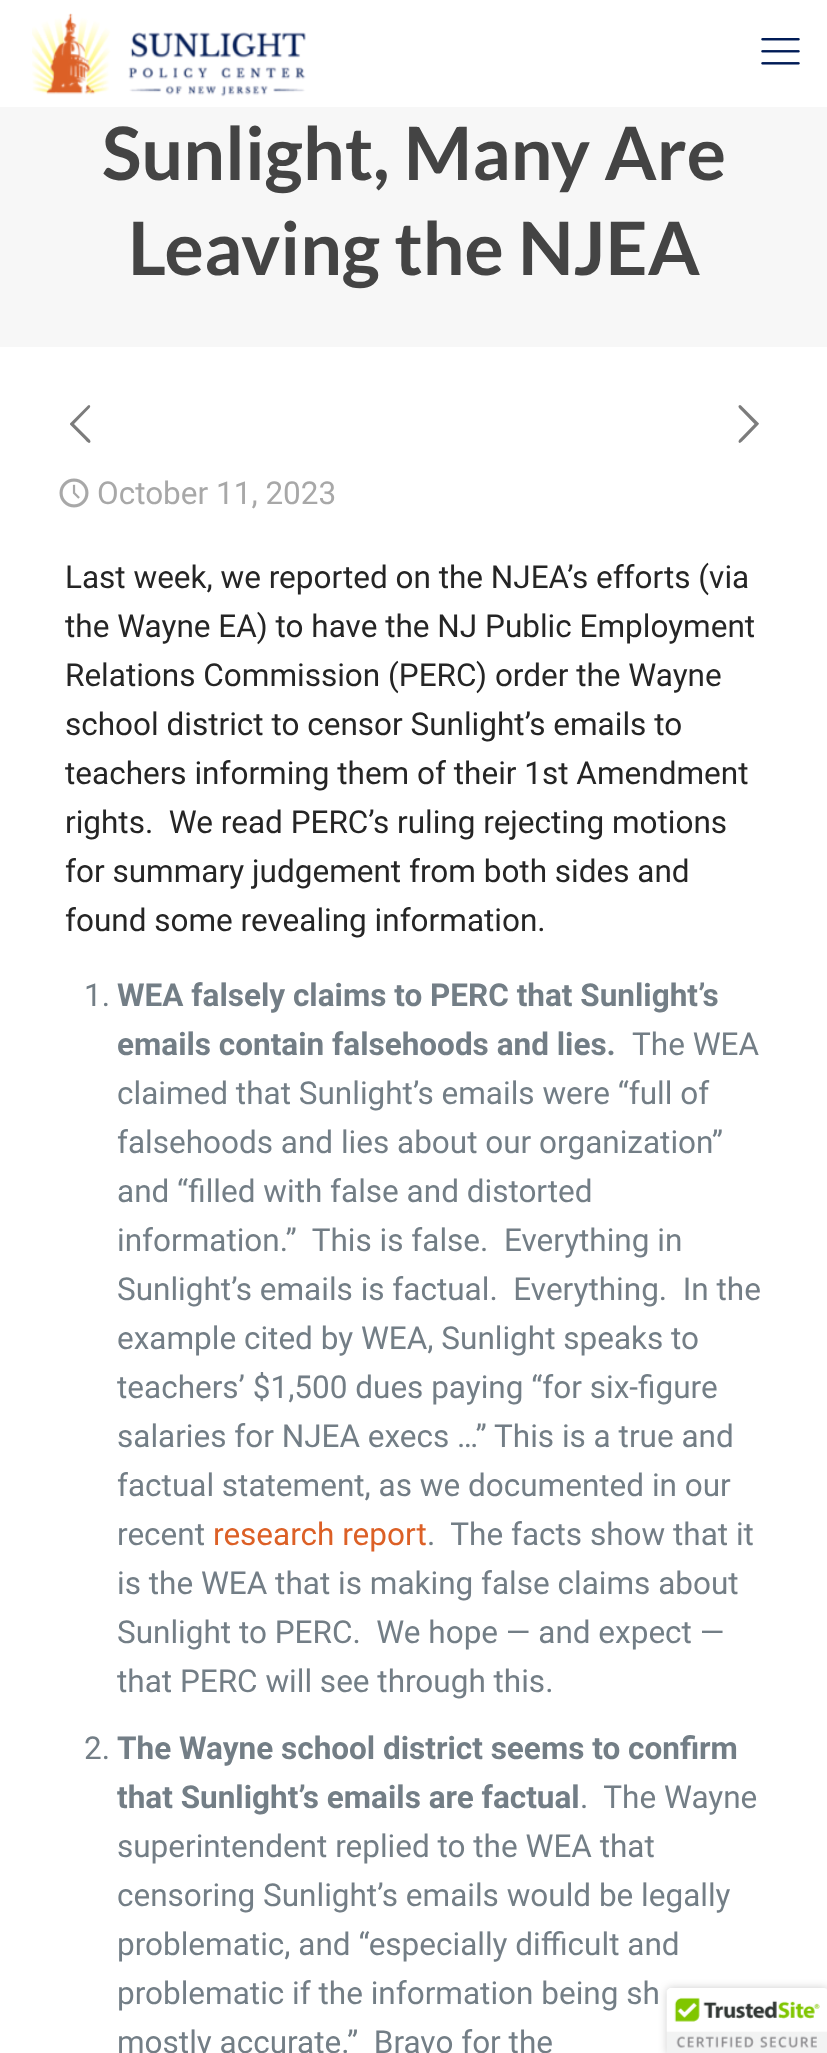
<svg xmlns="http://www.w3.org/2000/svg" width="827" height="2053">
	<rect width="100%" height="100%" fill="#FFFFFF" />
	<image x="32" y="13" width="274" height="84" href="assets/img1.png" />
	<image x="761" y="38" width="39" height="27" href="assets/img2.png" />
	<rect x="0" y="107" width="827" height="240" fill="#F7F7F7" />
	<g font-family="Lato" font-size="73.5" font-weight="700" fill="#444444">
		<text x="102" y="180">Sunlight, Many Are</text>
		<text x="128" y="275">Leaving the NJEA</text>
	</g>
	<path d="M90 440L90.5 441.5C89.5 445.5 85 439.5 85 439.5L70 424.5V423.5L70.5 423L88 405.5L89 405C92.5 406 87.5 410 87 410.5L74 424Z" fill="#7C7C7C" />
	<path d="M739 440L754.5 424L741.5 410.5C741 410 736 406 740 405L741 405.5L758.5 423L759 423.5L758.5 424.5L744 439.5C743.5 439.5 739.5 445.5 738.5 441.5Z" fill="#7C7C7C" />
	<image x="59" y="478" width="30" height="30" href="assets/img3.png" />
	<text x="97" y="504" font-family="Roboto" font-size="31.5" fill="#A8A8A8">October 11, 2023</text>
	<g font-family="Roboto" font-size="31.5" fill="#252525">
		<text x="65" y="588">Last week, we reported on the NJEA’s efforts (via</text>
		<text x="65" y="637">the Wayne EA) to have the NJ Public Employment</text>
		<text x="65" y="686">Relations Commission (PERC) order the Wayne</text>
		<text x="65" y="735">school district to censor Sunlight’s emails to</text>
		<text x="65" y="784">teachers informing them of their 1st Amendment</text>
		<text x="65" y="833" xml:space="preserve">rights.  We read PERC’s ruling rejecting motions</text>
		<text x="65" y="882">for summary judgement from both sides and</text>
		<text x="65" y="931">found some revealing information.</text>
	</g>
	<text x="84" y="1006" font-family="Roboto" font-size="31.5" fill="#737E86">1.</text>
	<g font-family="Roboto" font-size="31.5" font-weight="700" fill="#737E86">
		<text x="117" y="1006">WEA falsely claims to PERC that Sunlight’s</text>
		<text x="117" y="1055">emails contain falsehoods and lies.</text>
	</g>
	<g font-family="Roboto" font-size="31.5" fill="#737E86">
		<text x="632" y="1055">The WEA</text>
		<text x="117" y="1104">claimed that Sunlight’s emails were “full of</text>
		<text x="117" y="1153">falsehoods and lies about our organization”</text>
		<text x="117" y="1202">and “filled with false and distorted</text>
		<text x="117" y="1251" xml:space="preserve">information.”  This is false.  Everything in</text>
		<text x="117" y="1300" xml:space="preserve">Sunlight’s emails is factual.  Everything.  In the</text>
		<text x="117" y="1349">example cited by WEA, Sunlight speaks to</text>
		<text x="117" y="1398">teachers’ $1,500 dues paying “for six-figure</text>
		<text x="117" y="1447">salaries for NJEA execs …” This is a true and</text>
		<text x="117" y="1496">factual statement, as we documented in our</text>
		<text x="117" y="1545">recent</text>
	</g>
	<text x="213" y="1545" font-family="Roboto" font-size="31.5" fill="#DC6026">research report</text>
	<g font-family="Roboto" font-size="31.5" fill="#737E86">
		<text x="427" y="1545" xml:space="preserve">.  The facts show that it</text>
		<text x="117" y="1594">is the WEA that is making false claims about</text>
		<text x="117" y="1643" xml:space="preserve">Sunlight to PERC.  We hope — and expect —</text>
		<text x="117" y="1692">that PERC will see through this.</text>
		<text x="84" y="1759">2.</text>
	</g>
	<g font-family="Roboto" font-size="31.5" font-weight="700" fill="#737E86">
		<text x="117" y="1759">The Wayne school district seems to confirm</text>
		<text x="117" y="1808">that Sunlight’s emails are factual</text>
	</g>
	<g font-family="Roboto" font-size="31.5" fill="#737E86">
		<text x="580" y="1808" xml:space="preserve">.  The Wayne</text>
		<text x="117" y="1857">superintendent replied to the WEA that</text>
		<text x="117" y="1906">censoring Sunlight’s emails would be legally</text>
		<text x="117" y="1955">problematic, and “especially difficult and</text>
		<text x="117" y="2004">problematic if the information being sh</text>
		<text x="117" y="2053" xml:space="preserve">mostly accurate.”  Bravo for the</text>
	</g>
	<rect x="667" y="1988" width="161" height="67" rx="4" fill="#000000" fill-opacity="0.2" filter="blur(4.5px)" />
	<path d="M671 1988H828V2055H667V1992C667 1990 669 1988 671 1988Z" fill="#FFFFFF" />
	<image x="666" y="1988" width="161" height="65" href="assets/img4.png" />
</svg>
